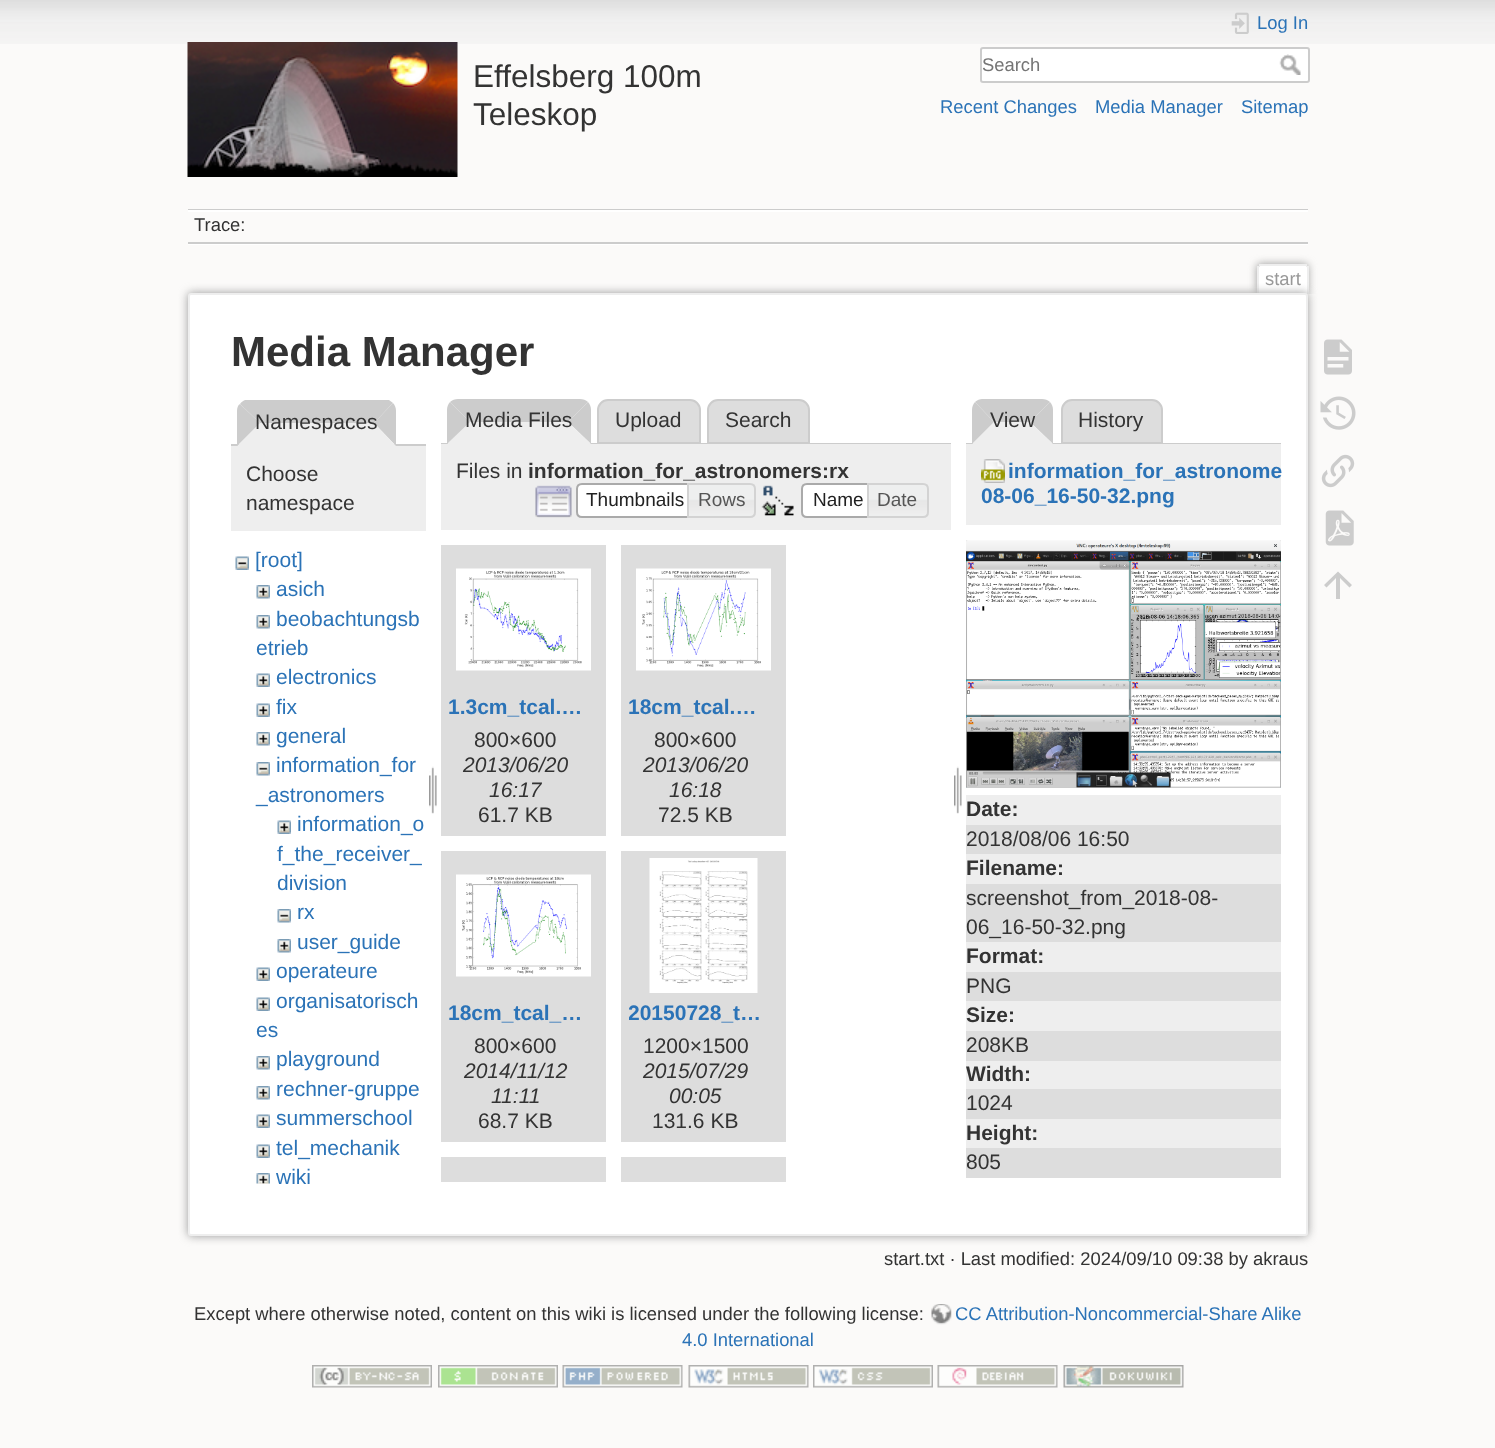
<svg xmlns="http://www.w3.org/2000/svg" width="1495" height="1448">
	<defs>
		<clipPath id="clip1"><rect x="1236" y="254" width="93" height="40" /></clipPath>
		<clipPath id="clip2"><rect x="629" y="993" width="135" height="41" /></clipPath>
	</defs>
	<rect width="100%" height="100%" fill="#FBFAF9" />
	<image x="0" y="0" width="1495" height="44" href="assets/img1.png" />
	<image x="187" y="42" width="271" height="135" href="assets/img2.png" />
	<g font-family="Liberation Sans" font-size="31.5" fill="#333333">
		<text x="473" y="87">Effelsberg 100m</text>
		<text x="473" y="125">Teleskop</text>
	</g>
	<image x="1231" y="12" width="18" height="22" href="assets/img3.png" />
	<text x="1257" y="29" font-family="Liberation Sans" font-size="18.4" fill="#2B73B7">Log In</text>
	<rect x="981" y="48" width="328" height="34" rx="2" fill="#FFFFFF" stroke="#CCCCCC" stroke-width="2" />
	<text x="982" y="71" font-family="Liberation Sans" font-size="18.4" fill="#757575">Search</text>
	<image x="1279" y="54" width="22" height="21" href="assets/img4.png" />
	<g font-family="Liberation Sans" font-size="18.4" fill="#2B73B7">
		<text x="940" y="113">Recent Changes</text>
		<text x="1095" y="113">Media Manager</text>
		<text x="1241" y="113">Sitemap</text>
	</g>
	<rect x="188" y="209" width="1120" height="1" fill="#CCCCCC" />
	<rect x="188" y="244" width="1120" height="1" fill="#FFFFFF" />
	<rect x="188" y="210" width="1120" height="2" fill="#FFFFFF" />
	<rect x="188" y="242" width="1120" height="2" fill="#CCCCCC" />
	<text x="194" y="231" font-family="Liberation Sans" font-size="18.4" fill="#333333">Trace:</text>
	<g clip-path="url(#clip1)">
		<rect x="1257" y="264" width="51" height="30" rx="3" fill="#999999" filter="blur(4.5px)" />
	</g>
	<path d="M1260.5 266H1305.5C1306.5 266 1307 266.5 1307 267.5V294H1259V267.5C1259 266.5 1259.5 266 1260.5 266Z" fill="#FFFFFF" />
	<rect x="1259" y="264" width="48" height="2" fill="#EEEEEE" />
	<rect x="1307" y="266" width="2" height="28" fill="#EEEEEE" />
	<rect x="1257" y="266" width="2" height="28" fill="#EEEEEE" />
	<text x="1265" y="285" font-family="Liberation Sans" font-size="18.4" fill="#999999">start</text>
	<rect x="188" y="293" width="1120" height="943" rx="3" fill="#999999" filter="blur(5px)" />
	<rect x="189" y="294" width="1118" height="941" rx="2" fill="#FFFFFF" stroke="#EEEEEE" stroke-width="2" />
	<text x="231" y="366" font-family="Liberation Sans" font-size="42" font-weight="700" fill="#333333">Media Manager</text>
	<path d="M389 400H245C243 401 241 402 240 404L260 423H374L393 403Z" fill="#CCCCCC" />
	<rect x="231" y="444" width="195" height="2" fill="#CCCCCC" />
	<path d="M393 403L374 423L396 446V411C396 408 395 405 393 403Z" fill="#CCCCCC" />
	<path d="M396 446L374 423H260L237 446Z" fill="#EEEEEE" />
	<path d="M237 446L260 423L240 404C238 405 237 408 237 411Z" fill="#CCCCCC" />
	<text x="255" y="429" font-family="Liberation Sans" font-size="21" fill="#333333">Namespaces</text>
	<rect x="231" y="446" width="195" height="85" fill="#EEEEEE" />
	<g font-family="Liberation Sans" font-size="21" fill="#333333">
		<text x="246" y="481">Choose</text>
		<text x="246" y="510">namespace</text>
	</g>
	<image x="235" y="556" width="14" height="14" href="assets/img5.png" />
	<text x="255" y="567" font-family="Liberation Sans" font-size="21" fill="#2B73B7">[root]</text>
	<image x="256" y="585" width="14" height="14" href="assets/img6.png" />
	<text x="276" y="596" font-family="Liberation Sans" font-size="21" fill="#2B73B7">asich</text>
	<image x="256" y="615" width="14" height="14" href="assets/img6.png" />
	<g font-family="Liberation Sans" font-size="21" fill="#2B73B7">
		<text x="276" y="626">beobachtungsb</text>
		<text x="256" y="655">etrieb</text>
	</g>
	<image x="256" y="673" width="14" height="14" href="assets/img7.png" />
	<text x="276" y="684" font-family="Liberation Sans" font-size="21" fill="#2B73B7">electronics</text>
	<image x="256" y="703" width="14" height="14" href="assets/img7.png" />
	<text x="276" y="714" font-family="Liberation Sans" font-size="21" fill="#2B73B7">fix</text>
	<image x="256" y="732" width="14" height="14" href="assets/img6.png" />
	<text x="276" y="743" font-family="Liberation Sans" font-size="21" fill="#2B73B7">general</text>
	<image x="256" y="762" width="14" height="14" href="assets/img8.png" />
	<g font-family="Liberation Sans" font-size="21" fill="#2B73B7">
		<text x="276" y="772">information_for</text>
		<text x="256" y="802">_astronomers</text>
	</g>
	<image x="277" y="820" width="14" height="14" href="assets/img7.png" />
	<g font-family="Liberation Sans" font-size="21" fill="#2B73B7">
		<text x="297" y="831">information_o</text>
		<text x="277" y="861">f_the_receiver_</text>
		<text x="277" y="890">division</text>
	</g>
	<image x="277" y="909" width="14" height="14" href="assets/img8.png" />
	<text x="297" y="919" font-family="Liberation Sans" font-size="21" fill="#2B73B7">rx</text>
	<image x="277" y="939" width="14" height="14" href="assets/img6.png" />
	<text x="297" y="949" font-family="Liberation Sans" font-size="21" fill="#2B73B7">user_guide</text>
	<image x="256" y="967" width="14" height="14" href="assets/img7.png" />
	<text x="276" y="978" font-family="Liberation Sans" font-size="21" fill="#2B73B7">operateure</text>
	<image x="256" y="997" width="14" height="14" href="assets/img7.png" />
	<g font-family="Liberation Sans" font-size="21" fill="#2B73B7">
		<text x="276" y="1008">organisatorisch</text>
		<text x="256" y="1037">es</text>
	</g>
	<image x="256" y="1056" width="14" height="14" href="assets/img6.png" />
	<text x="276" y="1066" font-family="Liberation Sans" font-size="21" fill="#2B73B7">playground</text>
	<image x="256" y="1086" width="14" height="14" href="assets/img6.png" />
	<text x="276" y="1096" font-family="Liberation Sans" font-size="21" fill="#2B73B7">rechner-gruppe</text>
	<image x="256" y="1114" width="14" height="14" href="assets/img7.png" />
	<text x="276" y="1125" font-family="Liberation Sans" font-size="21" fill="#2B73B7">summerschool</text>
	<image x="256" y="1144" width="14" height="14" href="assets/img7.png" />
	<text x="276" y="1155" font-family="Liberation Sans" font-size="21" fill="#2B73B7">tel_mechanik</text>
	<image x="256" y="1173" width="14" height="11" href="assets/img9.png" />
	<text x="276" y="1184" font-family="Liberation Sans" font-size="21" fill="#2B73B7">wiki</text>
	<image x="429" y="766" width="8" height="48" href="assets/img10.png" />
	<path d="M458 399H580C583 399 586 400 588 402L568 422H470L450 402C452 400 455 399 458 399Z" fill="#CCCCCC" />
	<path d="M608 400H690C695.5 400 700 404.5 700 410V443H598V410C598 404.5 602.5 400 608 400Z" fill="#DDDDDD" stroke="#CCCCCC" stroke-width="2" />
	<path d="M718 400H799C804.5 400 809 404.5 809 410V443H708V410C708 404.5 712.5 400 718 400Z" fill="#DDDDDD" stroke="#CCCCCC" stroke-width="2" />
	<rect x="441" y="443" width="510" height="1" fill="#CCCCCC" />
	<path d="M588 402L568 422L591 444V410C591 407 590 404 588 402Z" fill="#CCCCCC" />
	<path d="M591 444L568 422H470L447 444Z" fill="#EEEEEE" />
	<path d="M447 444V410C447 407 448 404 450 402L470 422Z" fill="#CCCCCC" />
	<g font-family="Liberation Sans" font-size="21" fill="#333333">
		<text x="465" y="427">Media Files</text>
		<text x="615" y="427">Upload</text>
		<text x="725" y="427">Search</text>
	</g>
	<rect x="441" y="444" width="510" height="86" fill="#EEEEEE" />
	<text x="456" y="478" font-family="Liberation Sans" font-size="21" fill="#333333">Files in</text>
	<text x="528" y="478" font-family="Liberation Sans" font-size="21" font-weight="700" fill="#333333">information_for_astronomers:rx</text>
	<image x="535" y="485" width="37" height="33" href="assets/img11.png" />
	<path d="M582 484H694V517H582C579 517 577 515 577 512V489C577 486 579 484 582 484Z" fill="#FFFFFF" stroke="#AAAAAA" stroke-width="2" />
	<text x="586" y="506" font-family="Liberation Sans" font-size="19" fill="#212121">Thumbnails</text>
	<image x="689" y="483" width="67" height="34" href="assets/img12.png" />
	<path d="M688 484H750C753 484 755 486 755 489V512C755 515 753 517 750 517H688Z" fill="none" stroke="#D3D3D3" stroke-width="2" />
	<text x="698" y="506" font-family="Liberation Sans" font-size="19" fill="#555555">Rows</text>
	<image x="761" y="485" width="33" height="31" href="assets/img13.png" />
	<path d="M807 484H874V517H807C804 517 802 515 802 512V489C802 486 804 484 807 484Z" fill="#FFFFFF" stroke="#AAAAAA" stroke-width="2" />
	<text x="813" y="506" font-family="Liberation Sans" font-size="19" fill="#212121">Name</text>
	<image x="869" y="483" width="59" height="34" href="assets/img14.png" />
	<path d="M868 484H923C926 484 928 486 928 489V512C928 515 926 517 923 517H868Z" fill="none" stroke="#D3D3D3" stroke-width="2" />
	<text x="877" y="506" font-family="Liberation Sans" font-size="19" fill="#555555">Date</text>
	<rect x="441" y="545" width="165" height="291" fill="#DDDDDD" />
	<image x="456" y="568" width="135" height="103" href="assets/img15.png" />
	<text x="448" y="714" font-family="Liberation Sans" font-size="21" font-weight="700" fill="#2B73B7">1.3cm_tcal.…</text>
	<text x="474" y="747" font-family="Liberation Sans" font-size="21" fill="#333333">800×600</text>
	<g font-family="Liberation Sans" font-size="21" font-style="italic" fill="#333333">
		<text x="463" y="772">2013/06/20</text>
		<text x="489" y="797">16:17</text>
	</g>
	<text x="478" y="822" font-family="Liberation Sans" font-size="21" fill="#333333">61.7 KB</text>
	<rect x="621" y="545" width="165" height="291" fill="#DDDDDD" />
	<image x="636" y="568" width="135" height="103" href="assets/img16.png" />
	<text x="628" y="714" font-family="Liberation Sans" font-size="21" font-weight="700" fill="#2B73B7">18cm_tcal.…</text>
	<text x="654" y="747" font-family="Liberation Sans" font-size="21" fill="#333333">800×600</text>
	<g font-family="Liberation Sans" font-size="21" font-style="italic" fill="#333333">
		<text x="643" y="772">2013/06/20</text>
		<text x="669" y="797">16:18</text>
	</g>
	<text x="658" y="822" font-family="Liberation Sans" font-size="21" fill="#333333">72.5 KB</text>
	<rect x="441" y="851" width="165" height="291" fill="#DDDDDD" />
	<image x="456" y="874" width="135" height="103" href="assets/img17.png" />
	<text x="448" y="1020" font-family="Liberation Sans" font-size="21" font-weight="700" fill="#2B73B7">18cm_tcal_…</text>
	<text x="474" y="1053" font-family="Liberation Sans" font-size="21" fill="#333333">800×600</text>
	<g font-family="Liberation Sans" font-size="21" font-style="italic" fill="#333333">
		<text x="464" y="1078">2014/11/12</text>
		<text x="491" y="1103">11:11</text>
	</g>
	<text x="478" y="1128" font-family="Liberation Sans" font-size="21" fill="#333333">68.7 KB</text>
	<rect x="621" y="851" width="165" height="291" fill="#DDDDDD" />
	<image x="649" y="858" width="109" height="135" href="assets/img18.png" />
	<g clip-path="url(#clip2)">
		<text x="628" y="1020" font-family="Liberation Sans" font-size="21" font-weight="700" fill="#2B73B7">20150728_t…</text>
	</g>
	<text x="643" y="1053" font-family="Liberation Sans" font-size="21" fill="#333333">1200×1500</text>
	<g font-family="Liberation Sans" font-size="21" font-style="italic" fill="#333333">
		<text x="643" y="1078">2015/07/29</text>
		<text x="669" y="1103">00:05</text>
	</g>
	<text x="652" y="1128" font-family="Liberation Sans" font-size="21" fill="#333333">131.6 KB</text>
	<rect x="441" y="1157" width="165" height="25" fill="#DDDDDD" />
	<rect x="621" y="1157" width="165" height="25" fill="#DDDDDD" />
	<image x="954" y="766" width="8" height="48" href="assets/img19.png" />
	<path d="M982 399H1042C1045 399 1048 400 1050 402L1030 422H994L975 402C977 400 980 399 982 399Z" fill="#CCCCCC" />
	<path d="M1072 400H1152C1157.5 400 1162 404.5 1162 410V443H1062V410C1062 404.5 1066.5 400 1072 400Z" fill="#DDDDDD" stroke="#CCCCCC" stroke-width="2" />
	<rect x="966" y="443" width="315" height="1" fill="#CCCCCC" />
	<path d="M1050 402L1030 422L1053 444V410C1053 407 1052 404 1050 402Z" fill="#CCCCCC" />
	<path d="M1053 444L1030 422H994L972 444Z" fill="#EEEEEE" />
	<path d="M972 444V410C972 407 973 404 975 402L994 422Z" fill="#CCCCCC" />
	<g font-family="Liberation Sans" font-size="21" fill="#333333">
		<text x="990" y="427">View</text>
		<text x="1078" y="427">History</text>
	</g>
	<rect x="966" y="444" width="315" height="81" fill="#EEEEEE" />
	<image x="981" y="459" width="24" height="24" href="assets/img20.png" />
	<g font-family="Liberation Sans" font-size="21" font-weight="700" fill="#2B73B7">
		<text x="1008" y="478">information_for_astronome</text>
		<text x="981" y="503">08-06_16-50-32.png</text>
	</g>
	<image x="966" y="540" width="315" height="248" href="assets/img21.png" />
	<rect x="966" y="795" width="315" height="30" fill="#EEEEEE" />
	<text x="966" y="816" font-family="Liberation Sans" font-size="21" font-weight="700" fill="#333333">Date:</text>
	<rect x="966" y="825" width="315" height="29" fill="#DDDDDD" />
	<text x="966" y="846" font-family="Liberation Sans" font-size="21" fill="#333333">2018/08/06 16:50</text>
	<rect x="966" y="854" width="315" height="30" fill="#EEEEEE" />
	<text x="966" y="875" font-family="Liberation Sans" font-size="21" font-weight="700" fill="#333333">Filename:</text>
	<rect x="966" y="884" width="315" height="58" fill="#DDDDDD" />
	<g font-family="Liberation Sans" font-size="21" fill="#333333">
		<text x="966" y="905">screenshot_from_2018-08-</text>
		<text x="966" y="934">06_16-50-32.png</text>
	</g>
	<rect x="966" y="942" width="315" height="30" fill="#EEEEEE" />
	<text x="966" y="963" font-family="Liberation Sans" font-size="21" font-weight="700" fill="#333333">Format:</text>
	<rect x="966" y="972" width="315" height="29" fill="#DDDDDD" />
	<text x="966" y="993" font-family="Liberation Sans" font-size="21" fill="#333333">PNG</text>
	<rect x="966" y="1001" width="315" height="30" fill="#EEEEEE" />
	<text x="966" y="1022" font-family="Liberation Sans" font-size="21" font-weight="700" fill="#333333">Size:</text>
	<rect x="966" y="1031" width="315" height="30" fill="#DDDDDD" />
	<text x="966" y="1052" font-family="Liberation Sans" font-size="21" fill="#333333">208KB</text>
	<rect x="966" y="1061" width="315" height="28" fill="#EEEEEE" />
	<text x="966" y="1081" font-family="Liberation Sans" font-size="21" font-weight="700" fill="#333333">Width:</text>
	<rect x="966" y="1089" width="315" height="30" fill="#DDDDDD" />
	<text x="966" y="1110" font-family="Liberation Sans" font-size="21" fill="#333333">1024</text>
	<rect x="966" y="1119" width="315" height="29" fill="#EEEEEE" />
	<text x="966" y="1140" font-family="Liberation Sans" font-size="21" font-weight="700" fill="#333333">Height:</text>
	<rect x="966" y="1148" width="315" height="30" fill="#DDDDDD" />
	<text x="966" y="1169" font-family="Liberation Sans" font-size="21" fill="#333333">805</text>
	<text x="884" y="1265" font-family="Liberation Sans" font-size="18.4" fill="#333333">start.txt · Last modified: 2024/09/10 09:38 by akraus</text>
	<image x="1324" y="339" width="28" height="36" href="assets/img22.png" />
	<image x="1320" y="396" width="36" height="34" href="assets/img23.png" />
	<image x="1321" y="454" width="34" height="34" href="assets/img24.png" />
	<image x="1325" y="510" width="29" height="36" href="assets/img25.png" />
	<path d="M1340 599H1336V578L1326.5 587.5L1324 585L1338 571.5L1352 585L1349.5 587.5L1340 578Z" fill="#CCCCCC" />
	<text x="194" y="1320" font-family="Liberation Sans" font-size="18.4" fill="#333333">Except where otherwise noted, content on this wiki is licensed under the following license:</text>
	<image x="931" y="1304" width="21" height="21" href="assets/img26.png" />
	<g font-family="Liberation Sans" font-size="18.4" fill="#2B73B7">
		<text x="955" y="1320">CC Attribution-Noncommercial-Share Alike</text>
		<text x="682" y="1346">4.0 International</text>
	</g>
	<image x="312" y="1365" width="120" height="23" href="assets/img27.png" />
	<image x="438" y="1365" width="120" height="23" href="assets/img28.png" />
	<image x="562" y="1365" width="121" height="23" href="assets/img29.png" />
	<image x="688" y="1365" width="121" height="23" href="assets/img30.png" />
	<image x="813" y="1365" width="120" height="23" href="assets/img31.png" />
	<image x="937" y="1365" width="121" height="23" href="assets/img32.png" />
	<image x="1063" y="1365" width="121" height="23" href="assets/img33.png" />
</svg>
